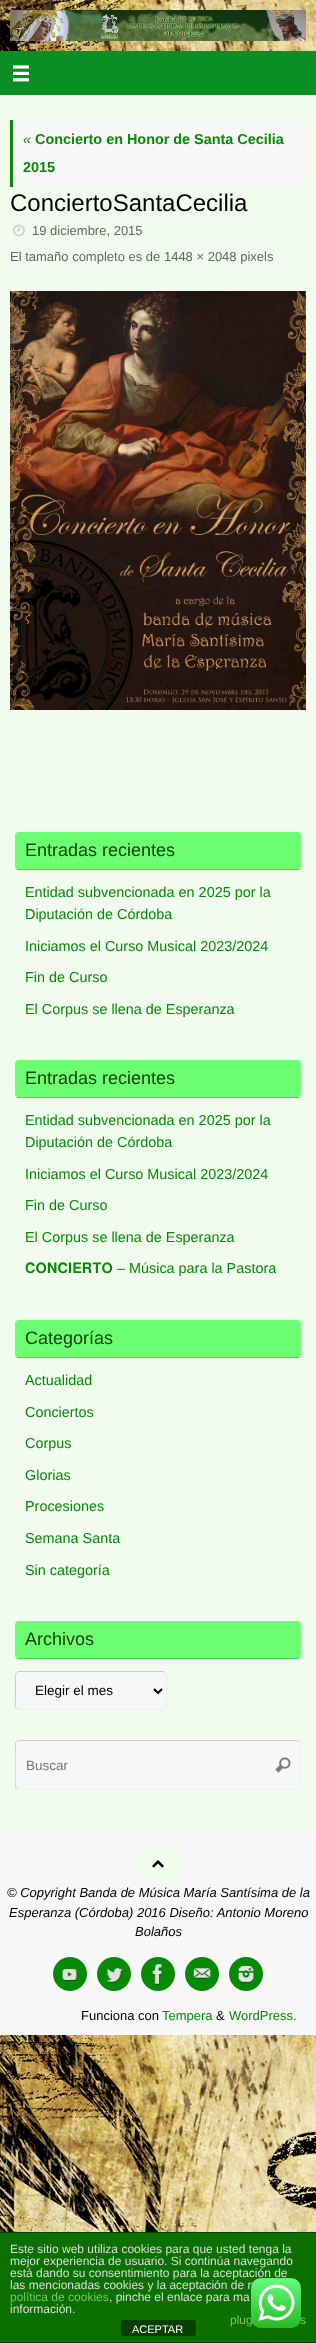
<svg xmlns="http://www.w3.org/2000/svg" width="316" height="2343">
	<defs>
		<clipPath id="clip1"><rect x="15" y="1740" width="286" height="50" /></clipPath>
	</defs>
	<rect width="100%" height="100%" fill="#FFFFFF" />
	<image x="0" y="0" width="316" height="2232" href="assets/img1.png" />
	<image x="10" y="10" width="296" height="31" href="assets/img2.png" />
	<rect x="0" y="51" width="316" height="44" fill="#0B8E23" />
	<image x="13" y="65" width="16" height="17" href="assets/img3.png" />
	<rect x="0" y="95" width="316" height="1730" fill="#F1FCEF" />
	<rect x="13" y="120" width="293" height="67" fill="#F7F7F7" />
	<rect x="10" y="120" width="3" height="67" fill="#088A08" />
	<text x="23" y="144" font-family="Liberation Sans" font-size="14.4" font-style="italic" fill="#088A08">«</text>
	<g font-family="Liberation Sans" font-size="14.4" font-weight="700" fill="#088A08">
		<text x="35" y="144">Concierto en Honor de Santa Cecilia</text>
		<text x="23" y="172">2015</text>
	</g>
	<text x="10" y="211" font-family="Liberation Sans" font-size="24" fill="#000000">ConciertoSantaCecilia</text>
	<image x="13" y="224" width="12" height="13" href="assets/img4.png" />
	<g font-family="Liberation Sans" font-size="13" fill="#666666">
		<text x="32" y="235">19 diciembre, 2015</text>
		<text x="10" y="261">El tamaño completo es de 1448 × 2048 pixels</text>
	</g>
	<image x="10" y="291" width="296" height="419" href="assets/img5.png" />
	<rect x="15" y="832" width="286" height="38" rx="4" fill="#6CFF73" />
	<rect x="17" y="869" width="282" height="1" fill="#44D74B" />
	<text x="25" y="856" font-family="Liberation Sans" font-size="18" fill="#184005">Entradas recientes</text>
	<g font-family="Liberation Sans" font-size="14.4" fill="#088A08">
		<text x="25" y="897">Entidad subvencionada en 2025 por la</text>
		<text x="25" y="919">Diputación de Córdoba</text>
		<text x="25" y="951">Iniciamos el Curso Musical 2023/2024</text>
		<text x="25" y="982">Fin de Curso</text>
		<text x="25" y="1014">El Corpus se llena de Esperanza</text>
	</g>
	<rect x="15" y="1060" width="286" height="38" rx="4" fill="#6CFF73" />
	<rect x="17" y="1097" width="282" height="1" fill="#44D74B" />
	<text x="25" y="1084" font-family="Liberation Sans" font-size="18" fill="#184005">Entradas recientes</text>
	<g font-family="Liberation Sans" font-size="14.4" fill="#088A08">
		<text x="25" y="1125">Entidad subvencionada en 2025 por la</text>
		<text x="25" y="1147">Diputación de Córdoba</text>
		<text x="25" y="1179">Iniciamos el Curso Musical 2023/2024</text>
		<text x="25" y="1210">Fin de Curso</text>
		<text x="25" y="1242">El Corpus se llena de Esperanza</text>
	</g>
	<text x="25" y="1273" font-family="FreeSans" font-size="14.4" fill="#088A08">𝐂𝐎𝐍𝐂𝐈𝐄𝐑𝐓𝐎</text>
	<text x="117" y="1273" font-family="Liberation Sans" font-size="14.4" fill="#088A08">– Música para la Pastora</text>
	<rect x="15" y="1320" width="286" height="38" rx="4" fill="#6CFF73" />
	<rect x="17" y="1357" width="282" height="1" fill="#44D74B" />
	<text x="25" y="1344" font-family="Liberation Sans" font-size="18" fill="#184005">Categorías</text>
	<g font-family="Liberation Sans" font-size="14.4" fill="#088A08">
		<text x="25" y="1385">Actualidad</text>
		<text x="25" y="1417">Conciertos</text>
		<text x="25" y="1448">Corpus</text>
		<text x="25" y="1480">Glorias</text>
		<text x="25" y="1511">Procesiones</text>
		<text x="25" y="1543">Semana Santa</text>
		<text x="25" y="1575">Sin categoría</text>
	</g>
	<rect x="15" y="1621" width="286" height="38" rx="4" fill="#6CFF73" />
	<rect x="17" y="1658" width="282" height="1" fill="#44D74B" />
	<text x="25" y="1645" font-family="Liberation Sans" font-size="18" fill="#184005">Archivos</text>
	<rect x="15" y="1671" width="152" height="39" rx="4" fill="#F7F7F7" />
	<path d="M165.5 1672.5C167.5 1674.5 166.5 1678.5 166.5 1680V1701C166.5 1703.5 167.5 1709.5 163 1709.5H18.5L16.5 1708.5" fill="none" stroke="#EEEEEE" />
	<path d="M16.5 1708.5C14.5 1706.5 15.5 1702.5 15.5 1701V1680C15.5 1677.5 14.5 1671.5 19 1671.5H163.5L165.5 1672.5" fill="none" stroke="#CCCCCC" />
	<path d="M154 1689L158 1693L162 1689" fill="none" stroke="#000000" stroke-width="2" />
	<text x="35" y="1695" font-family="Liberation Sans" font-size="13.5" fill="#000000">Elegir el mes</text>
	<rect x="15" y="1740" width="286" height="50" rx="4" fill="#F7F7F7" />
	<g clip-path="url(#clip1)">
		<path d="M299.5 1741.5C302 1744 300.5 1780 300.5 1786C300.5 1788 299 1789.5 297 1789.5H18.5L16.5 1788.5" fill="none" stroke="#EEEEEE" />
		<path d="M16.5 1788.5C14 1786 15.5 1750 15.5 1744C15.5 1742 17 1740.5 19 1740.5H297.5L299.5 1741.5" fill="none" stroke="#CCCCCC" />
	</g>
	<text x="26" y="1770" font-family="Liberation Sans" font-size="13.5" fill="#757575">Buscar</text>
	<image x="275" y="1757" width="16" height="16" href="assets/img6.png" />
	<rect x="0" y="1825" width="316" height="210" fill="#F7F7F7" />
	<path d="M140 1845H177C179 1845 181 1847 181 1849V1883H136V1849C136 1847 138 1845 140 1845Z" fill="#F1FCEF" />
	<image x="152" y="1860" width="12" height="8" href="assets/img7.png" />
	<g font-family="Liberation Sans" font-size="13" font-style="italic" fill="#000000">
		<text x="7" y="1897">© Copyright Banda de Música María Santísima de la</text>
		<text x="9" y="1917">Esperanza (Córdoba) 2016 Diseño: Antonio Moreno</text>
		<text x="135" y="1936">Bolaños</text>
	</g>
	<circle cx="70" cy="1974" r="17" fill="#088A08" />
	<image x="62" y="1969" width="16" height="12" href="assets/img8.png" />
	<circle cx="114" cy="1974" r="17" fill="#088A08" />
	<image x="106" y="1968" width="17" height="15" href="assets/img9.png" />
	<circle cx="158" cy="1974" r="17" fill="#088A08" />
	<image x="152" y="1964" width="10" height="22" href="assets/img10.png" />
	<circle cx="202" cy="1974" r="17" fill="#088A08" />
	<image x="193" y="1968" width="18" height="12" href="assets/img11.png" />
	<circle cx="246" cy="1974" r="17" fill="#088A08" />
	<image x="238" y="1966" width="16" height="18" href="assets/img12.png" />
	<text x="81" y="2020" font-family="Liberation Sans" font-size="13" fill="#000000">Funciona con</text>
	<text x="162" y="2020" font-family="Liberation Sans" font-size="13" fill="#088A08">Tempera</text>
	<text x="216" y="2020" font-family="Liberation Sans" font-size="13" fill="#000000">&amp;</text>
	<text x="229" y="2020" font-family="Liberation Sans" font-size="13" fill="#088A08">WordPress.</text>
	<rect x="0" y="2233" width="316" height="109" fill="#0B7000" />
	<rect x="0" y="2232" width="316" height="1" fill="#064000" />
	<rect x="0" y="2342" width="316" height="1" fill="#064000" />
	<g font-family="Liberation Sans" font-size="12" fill="#DDDDDD">
		<text x="10" y="2253">Este sitio web utiliza cookies para que usted tenga la</text>
		<text x="10" y="2265">mejor experiencia de usuario. Si continúa navegando</text>
		<text x="10" y="2277">está dando su consentimiento para la aceptación de</text>
		<text x="10" y="2289">las mencionadas cookies y la aceptación de n</text>
	</g>
	<text x="10" y="2301" font-family="Liberation Sans" font-size="12" fill="#75C76C">política de cookies</text>
	<g font-family="Liberation Sans" font-size="12" fill="#DDDDDD">
		<text x="109" y="2301">, pinche el enlace para ma</text>
		<text x="10" y="2313">información.</text>
	</g>
	<g font-family="Liberation Sans" font-size="12" fill="#75C76C">
		<text x="230" y="2324">plug</text>
		<text x="300" y="2324">s</text>
	</g>
	<rect x="121" y="2320" width="75" height="16" rx="3" fill="#074000" />
	<text x="132" y="2333" font-family="Liberation Sans" font-size="11" fill="#FFFFFF">ACEPTAR</text>
	<image x="251" y="2278" width="50" height="50" href="assets/img13.png" />
</svg>
